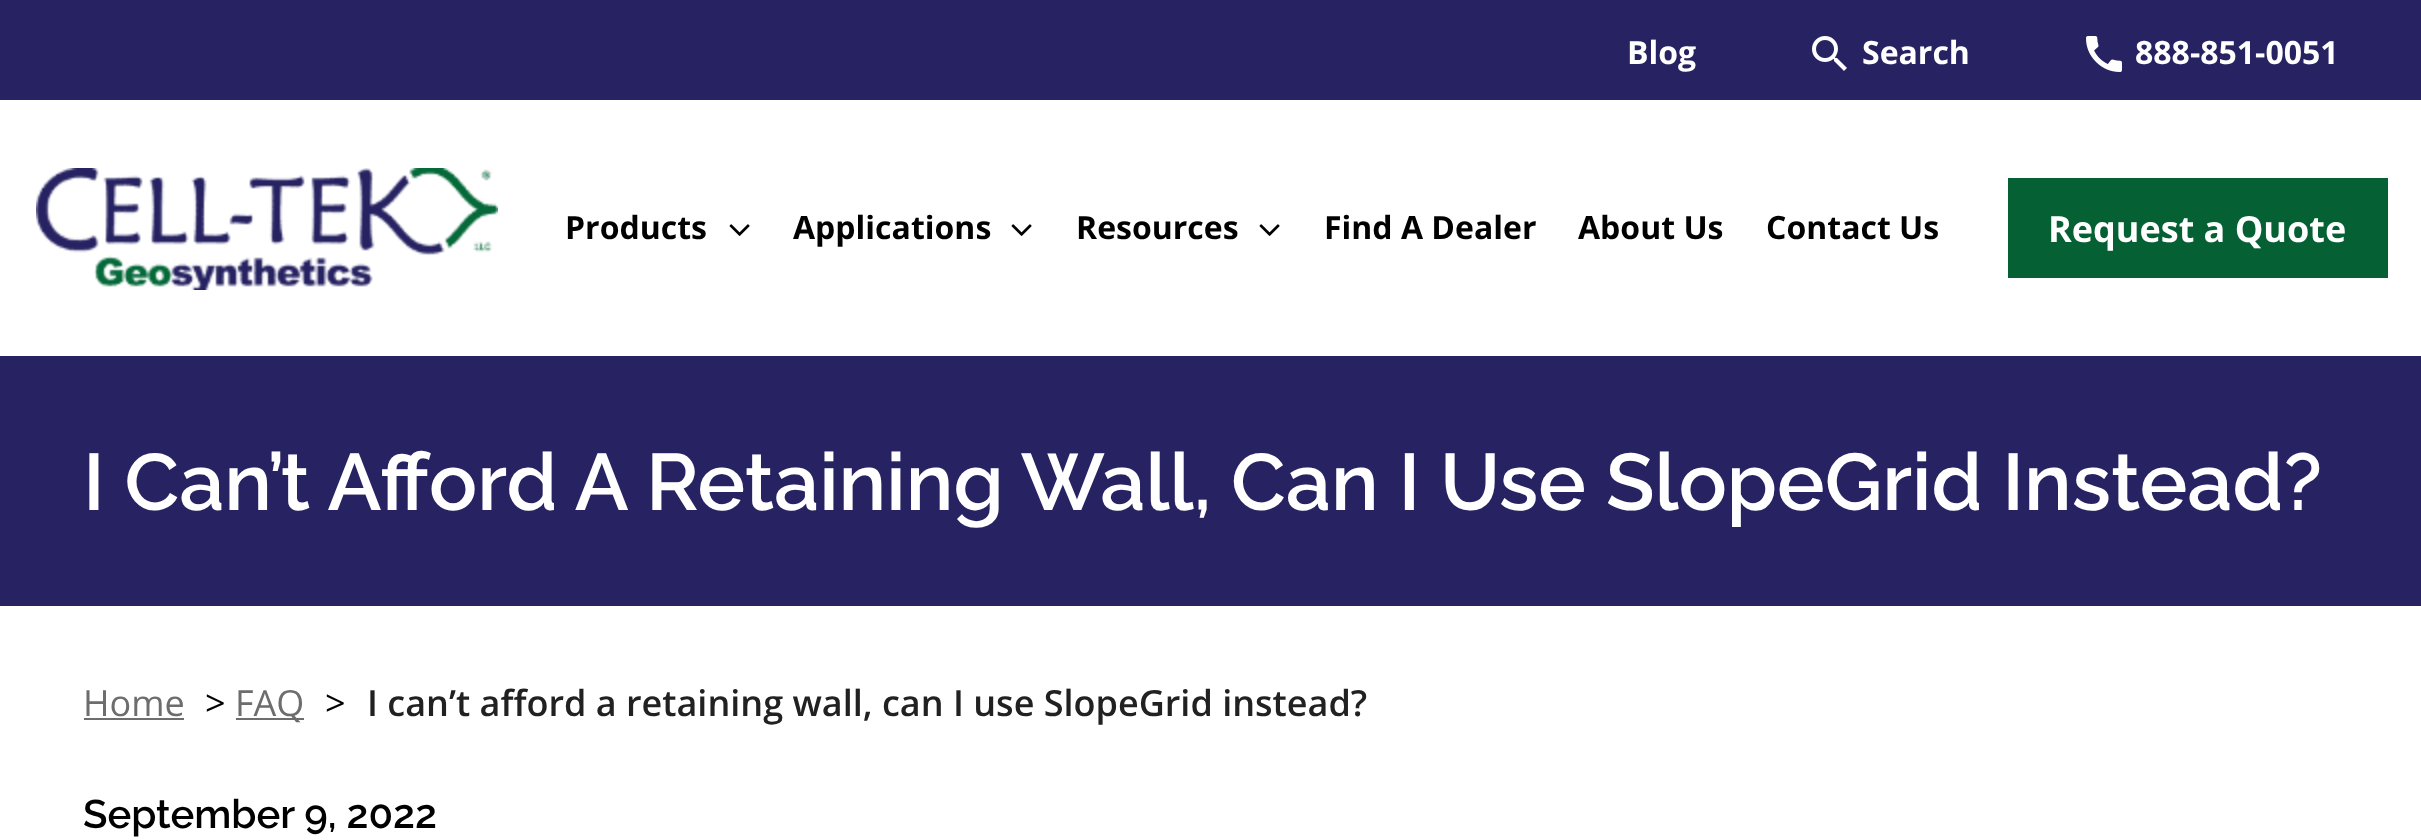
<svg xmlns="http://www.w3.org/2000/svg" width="2421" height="840">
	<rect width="100%" height="100%" fill="#FFFFFF" />
	<rect x="0" y="0" width="2421" height="100" fill="#272362" />
	<text x="1627" y="64" font-family="Open Sans" font-size="32" font-weight="700" fill="#FFFFFF">Blog</text>
	<image x="1812" y="36" width="35" height="35" href="assets/img1.png" />
	<text x="1862" y="64" font-family="Open Sans" font-size="32" font-weight="700" fill="#FFFFFF">Search</text>
	<image x="2086" y="36" width="36" height="36" href="assets/img2.png" />
	<text x="2135" y="64" font-family="Open Sans" font-size="32" font-weight="700" fill="#FFFFFF">888-851-0051</text>
	<image x="36" y="168" width="462" height="122" href="assets/img3.png" />
	<text x="565" y="239" font-family="Open Sans" font-size="32" font-weight="700" fill="#000000">Products</text>
	<image x="729" y="224" width="21" height="12" href="assets/img4.png" />
	<text x="793" y="239" font-family="Open Sans" font-size="32" font-weight="700" fill="#000000">Applications</text>
	<image x="1011" y="224" width="21" height="12" href="assets/img4.png" />
	<text x="1076" y="239" font-family="Open Sans" font-size="32" font-weight="700" fill="#000000">Resources</text>
	<image x="1259" y="224" width="21" height="12" href="assets/img4.png" />
	<g font-family="Open Sans" font-size="32" font-weight="700" fill="#000000">
		<text x="1324" y="239">Find A Dealer</text>
		<text x="1578" y="239">About Us</text>
		<text x="1766" y="239">Contact Us</text>
	</g>
	<rect x="2008" y="178" width="380" height="100" fill="#056134" />
	<text x="2048" y="242" font-family="Open Sans" font-size="36" font-weight="700" fill="#FFFFFF">Request a Quote</text>
	<rect x="0" y="356" width="2421" height="250" fill="#272362" />
	<text x="83" y="510" font-family="Raleway" font-size="80" font-weight="600" fill="#FFFFFF">I Can’t Afford A Retaining Wall, Can I Use SlopeGrid Instead?</text>
	<text x="83" y="716" font-family="Open Sans" font-size="36" fill="#6D6D6D">Home</text>
	<rect x="84" y="718" width="100" height="2" fill="#6D6D6D" />
	<text x="205" y="716" font-family="Open Sans" font-size="36" fill="#000000">&gt;</text>
	<rect x="236" y="718" width="68" height="2" fill="#6D6D6D" />
	<text x="235" y="716" font-family="Open Sans" font-size="36" fill="#6D6D6D">FAQ</text>
	<text x="325" y="716" font-family="Open Sans" font-size="36" fill="#000000">&gt;</text>
	<text x="367" y="716" font-family="Open Sans" font-size="36" font-weight="600" fill="#212121">I can’t afford a retaining wall, can I use SlopeGrid instead?</text>
	<text x="83" y="828" font-family="Raleway" font-size="40" font-weight="600" fill="#000000">September 9, 2022</text>
</svg>
